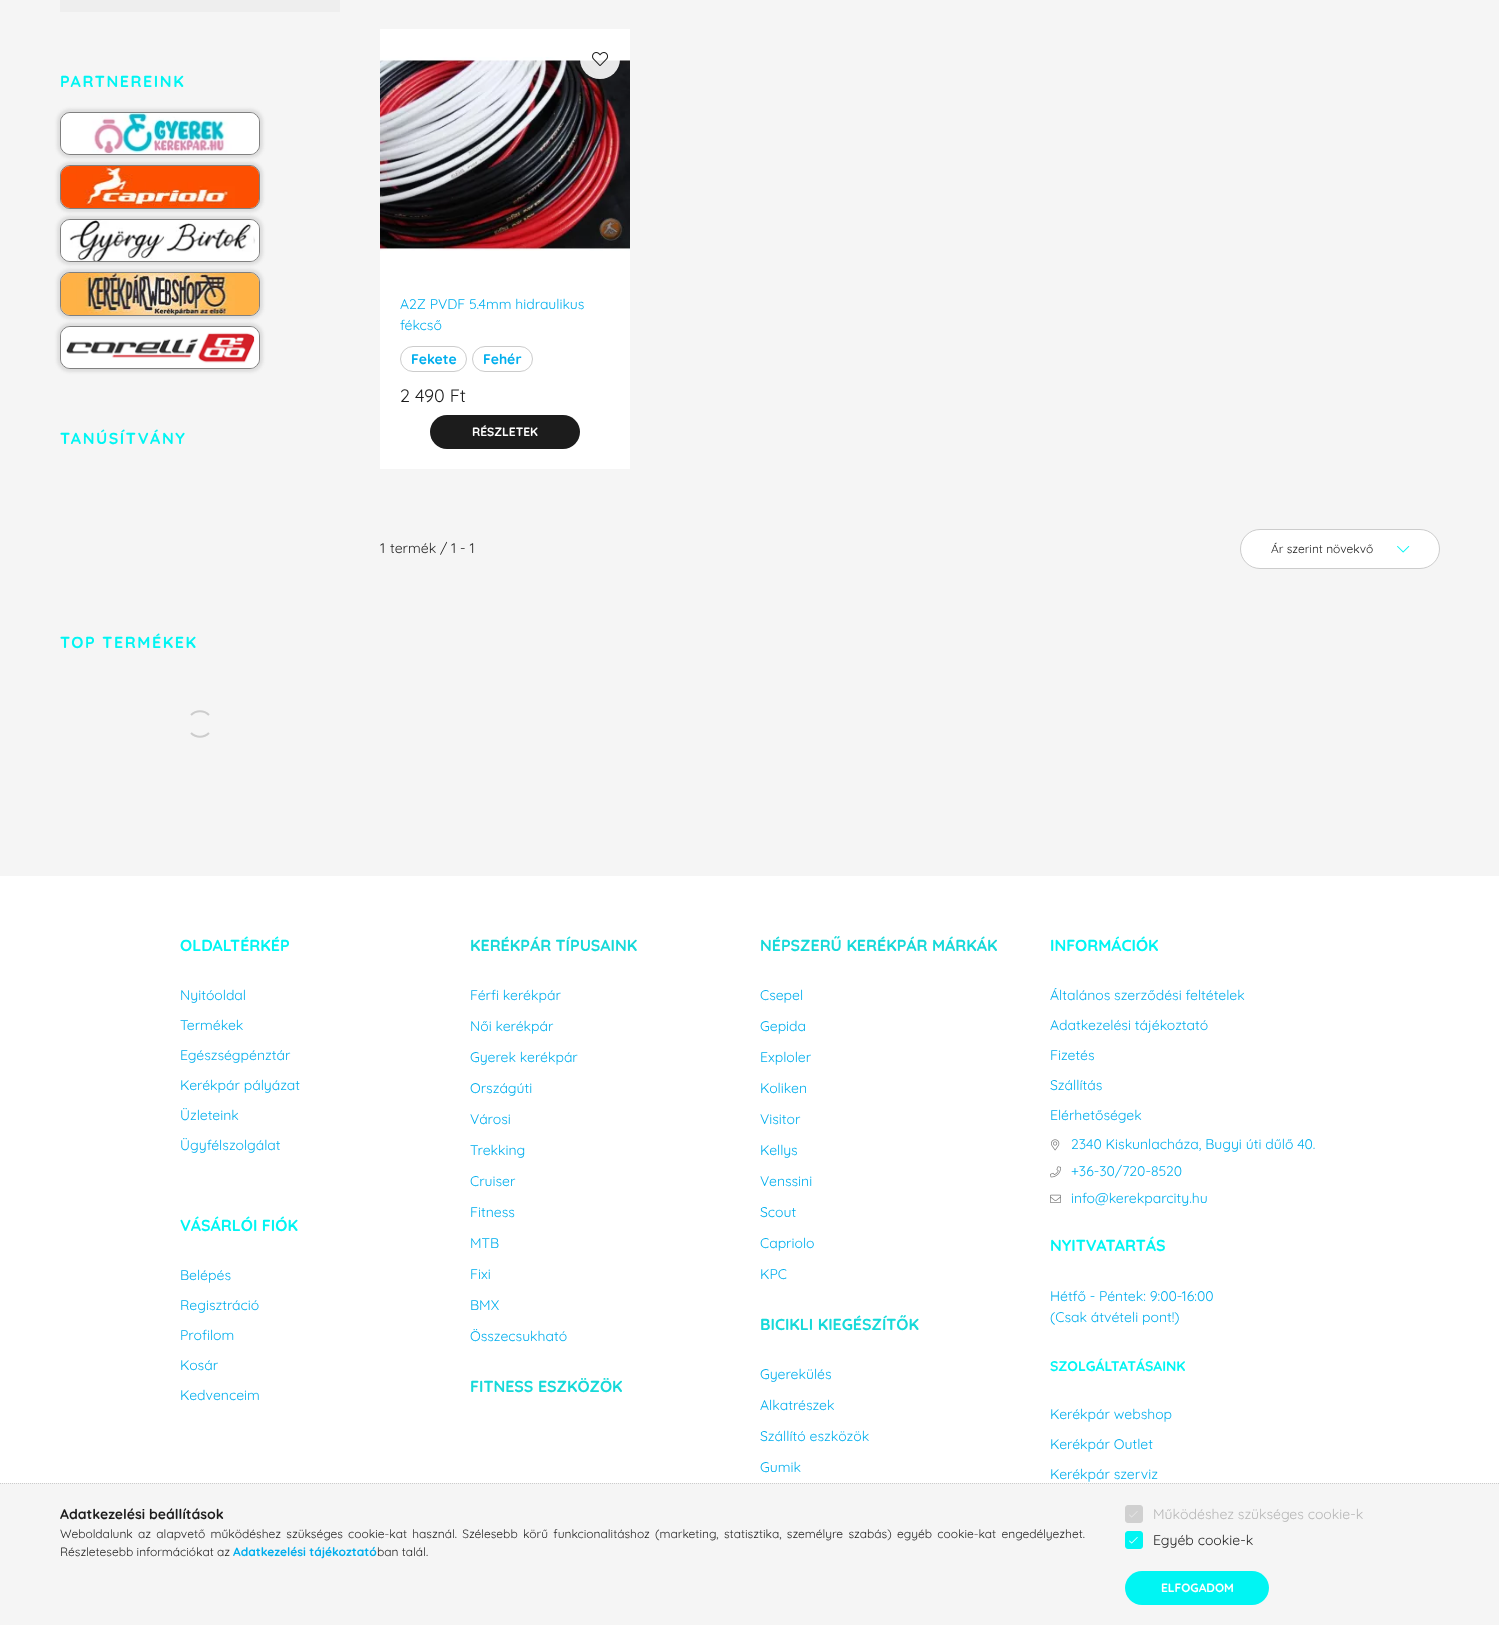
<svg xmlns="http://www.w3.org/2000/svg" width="1499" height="1625">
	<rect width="100%" height="100%" fill="#F5F5F5" />
	<rect x="60" y="0" width="280" height="12" fill="#EEEEEE" />
	<text x="60" y="87" font-family="Quicksand" font-size="16" font-weight="700" letter-spacing="1.6" fill="#00F5F3">PARTNEREINK</text>
	<rect x="57" y="109" width="206" height="49" rx="13" fill="#DDDDDD" filter="blur(1.5px)" />
	<rect x="60.5" y="112.5" width="199" height="42" rx="9.5" fill="none" stroke="#808080" />
	<image x="61" y="113" width="198" height="41" href="assets/img1.png" />
	<rect x="57" y="162" width="206" height="50" rx="13" fill="#DDDDDD" filter="blur(1.5px)" />
	<rect x="60.5" y="165.5" width="199" height="43" rx="9.5" fill="none" stroke="#808080" />
	<image x="61" y="166" width="198" height="42" href="assets/img2.png" />
	<rect x="57" y="216" width="206" height="49" rx="13" fill="#DDDDDD" filter="blur(1.5px)" />
	<rect x="60.5" y="219.5" width="199" height="42" rx="9.5" fill="none" stroke="#808080" />
	<image x="61" y="220" width="198" height="41" href="assets/img3.png" />
	<rect x="57" y="269" width="206" height="50" rx="13" fill="#DDDDDD" filter="blur(1.5px)" />
	<rect x="60.5" y="272.5" width="199" height="43" rx="9.5" fill="none" stroke="#808080" />
	<image x="61" y="273" width="198" height="42" href="assets/img4.png" />
	<rect x="57" y="323" width="206" height="49" rx="13" fill="#DDDDDD" filter="blur(1.5px)" />
	<rect x="60.5" y="326.5" width="199" height="42" rx="9.5" fill="none" stroke="#808080" />
	<image x="61" y="327" width="198" height="41" href="assets/img5.png" />
	<g font-family="Quicksand" font-size="16" font-weight="700" letter-spacing="1.6" fill="#00F5F3">
		<text x="60" y="444">TANÚSÍTVÁNY</text>
		<text x="60" y="648">TOP TERMÉKEK</text>
	</g>
	<path d="M191 715C196 710 204 710 209 715M209 733C204 738 196 738 191 733" fill="none" stroke="#CCCCCC" stroke-width="2" />
	<rect x="380" y="29" width="250" height="440" fill="#FFFFFF" />
	<image x="380" y="57" width="250" height="194" href="assets/img7.png" />
	<circle cx="600" cy="59" r="20" fill="#FFFFFF" fill-opacity="0.9" />
	<image x="592" y="52" width="16" height="14" href="assets/img6.png" />
	<g font-family="Quicksand" font-size="14" fill="#00AEED">
		<text x="400" y="309">A2Z PVDF 5.4mm hidraulikus</text>
		<text x="400" y="330">fékcső</text>
	</g>
	<rect x="400.5" y="346.5" width="66" height="25" rx="12.5" fill="none" stroke="#CCCCCC" />
	<text x="411" y="364" font-family="Quicksand" font-size="14" font-weight="700" fill="#00AEED">Fekete</text>
	<rect x="472.5" y="346.5" width="60" height="25" rx="12.5" fill="none" stroke="#CCCCCC" />
	<text x="483" y="364" font-family="Quicksand" font-size="14" font-weight="700" fill="#00AEED">Fehér</text>
	<text x="400" y="402" font-family="Quicksand" font-size="18" fill="#1C1C1C">2 490 Ft</text>
	<rect x="430" y="415" width="150" height="34" rx="17" fill="#1C1C1C" />
	<text x="472" y="436" font-family="Quicksand" font-size="12" font-weight="700" fill="#FFFFFF">RÉSZLETEK</text>
	<g font-family="Quicksand" font-size="14" fill="#1C1C1C">
		<text x="380" y="553">1</text>
		<text x="390" y="553">termék / 1 - 1</text>
	</g>
	<rect x="1240.5" y="529.5" width="199" height="39" rx="19.5" fill="#FFFFFF" stroke="#CCCCCC" />
	<text x="1271" y="553" font-family="Quicksand" font-size="12" fill="#1C1C1C">Ár szerint növekvő</text>
	<image x="1397" y="546" width="13" height="7" href="assets/img8.png" />
	<rect x="0" y="876" width="1499" height="607" fill="#FFFFFF" />
	<text x="180" y="951" font-family="Quicksand" font-size="16" font-weight="700" fill="#00F5F3">OLDALTÉRKÉP</text>
	<g font-family="Quicksand" font-size="14" fill="#00AEED">
		<text x="180" y="1000">Nyitóoldal</text>
		<text x="180" y="1030">Termékek</text>
		<text x="180" y="1060">Egészségpénztár</text>
		<text x="180" y="1090">Kerékpár pályázat</text>
		<text x="180" y="1120">Üzleteink</text>
		<text x="180" y="1150">Ügyfélszolgálat</text>
	</g>
	<text x="180" y="1231" font-family="Quicksand" font-size="16" font-weight="700" fill="#00F5F3">VÁSÁRLÓI FIÓK</text>
	<g font-family="Quicksand" font-size="14" fill="#00AEED">
		<text x="180" y="1280">Belépés</text>
		<text x="180" y="1310">Regisztráció</text>
		<text x="180" y="1340">Profilom</text>
		<text x="180" y="1370">Kosár</text>
		<text x="180" y="1400">Kedvenceim</text>
	</g>
	<text x="470" y="951" font-family="Quicksand" font-size="16" font-weight="700" fill="#16D9D9">KERÉKPÁR TÍPUSAINK</text>
	<g font-family="Quicksand" font-size="14" fill="#00AEED">
		<text x="470" y="1000">Férfi kerékpár</text>
		<text x="470" y="1031">Női kerékpár</text>
		<text x="470" y="1062">Gyerek kerékpár</text>
		<text x="470" y="1093">Országúti</text>
		<text x="470" y="1124">Városi</text>
		<text x="470" y="1155">Trekking</text>
		<text x="470" y="1186">Cruiser</text>
		<text x="470" y="1217">Fitness</text>
		<text x="470" y="1248">MTB</text>
		<text x="470" y="1279">Fixi</text>
		<text x="470" y="1310">BMX</text>
		<text x="470" y="1341">Összecsukható</text>
	</g>
	<g font-family="Quicksand" font-size="16" font-weight="700" fill="#16D9D9">
		<text x="470" y="1392">FITNESS ESZKÖZÖK</text>
		<text x="760" y="951">NÉPSZERŰ KERÉKPÁR MÁRKÁK</text>
	</g>
	<g font-family="Quicksand" font-size="14" fill="#00AEED">
		<text x="760" y="1000">Csepel</text>
		<text x="760" y="1031">Gepida</text>
		<text x="760" y="1062">Exploler</text>
		<text x="760" y="1093">Koliken</text>
		<text x="760" y="1124">Visitor</text>
		<text x="760" y="1155">Kellys</text>
		<text x="760" y="1186">Venssini</text>
		<text x="760" y="1217">Scout</text>
		<text x="760" y="1248">Capriolo</text>
		<text x="760" y="1279">KPC</text>
	</g>
	<text x="760" y="1330" font-family="Quicksand" font-size="16" font-weight="700" fill="#16D9D9">BICIKLI KIEGÉSZÍTŐK</text>
	<g font-family="Quicksand" font-size="14" fill="#00AEED">
		<text x="760" y="1379">Gyerekülés</text>
		<text x="760" y="1410">Alkatrészek</text>
		<text x="760" y="1441">Szállító eszközök</text>
		<text x="760" y="1472">Gumik</text>
	</g>
	<text x="1050" y="951" font-family="Quicksand" font-size="16" font-weight="700" fill="#00F5F3">INFORMÁCIÓK</text>
	<g font-family="Quicksand" font-size="14" fill="#00AEED">
		<text x="1050" y="1000">Általános szerződési feltételek</text>
		<text x="1050" y="1030">Adatkezelési tájékoztató</text>
		<text x="1050" y="1060">Fizetés</text>
		<text x="1050" y="1090">Szállítás</text>
		<text x="1050" y="1120">Elérhetőségek</text>
	</g>
	<image x="1051" y="1139" width="9" height="12" href="assets/img9.png" />
	<text x="1071" y="1149" font-family="Quicksand" font-size="14" fill="#00AEED">2340 Kiskunlacháza, Bugyi úti dűlő 40.</text>
	<image x="1050" y="1166" width="11" height="12" href="assets/img10.png" />
	<text x="1071" y="1176" font-family="Quicksand" font-size="14" fill="#00AEED">+36-30/720-8520</text>
	<image x="1050" y="1194" width="11" height="9" href="assets/img11.png" />
	<text x="1071" y="1203" font-family="Quicksand" font-size="14" fill="#00AEED">info@kerekparcity.hu</text>
	<text x="1050" y="1251" font-family="Quicksand" font-size="16" font-weight="700" fill="#00F5F3">NYITVATARTÁS</text>
	<g font-family="Quicksand" font-size="14" fill="#00AEED">
		<text x="1050" y="1301">Hétfő - Péntek: 9:00-16:00</text>
		<text x="1050" y="1322">(Csak átvételi pont!)</text>
	</g>
	<text x="1050" y="1371" font-family="Quicksand" font-size="14" font-weight="700" fill="#00F5F3">SZOLGÁLTATÁSAINK</text>
	<g font-family="Quicksand" font-size="14" fill="#00AEED">
		<text x="1050" y="1419">Kerékpár webshop</text>
		<text x="1050" y="1449">Kerékpár Outlet</text>
		<text x="1050" y="1479">Kerékpár szerviz</text>
	</g>
	<path d="M0 1483.5H1499" fill="none" stroke="#CCCCCC" stroke-dasharray="1 1" />
	<text x="60" y="1519" font-family="Quicksand" font-size="14" font-weight="700" fill="#1C1C1C">Adatkezelési beállítások</text>
	<g font-family="Quicksand" font-size="12" fill="#1C1C1C">
		<text x="60" y="1538" word-spacing="2">Weboldalunk az alapvető működéshez szükséges cookie-kat használ. Szélesebb körű funkcionalitáshoz (marketing, statisztika, személyre szabás) egyéb cookie-kat engedélyezhet.</text>
		<text x="60" y="1556">Részletesebb információkat az</text>
	</g>
	<text x="233" y="1556" font-family="Quicksand" font-size="12" font-weight="700" fill="#00AEED">Adatkezelési tájékoztató</text>
	<text x="377" y="1556" font-family="Quicksand" font-size="12" fill="#1C1C1C">ban talál.</text>
	<rect x="1125.5" y="1505.5" width="17" height="17" rx="2.5" fill="#D0D0D0" stroke="#D0D0D0" />
	<image x="1129" y="1511" width="9" height="7" href="assets/img12.png" />
	<text x="1153" y="1519" font-family="Quicksand" font-size="14" fill="#B6B6B6">Működéshez szükséges cookie-k</text>
	<rect x="1125.5" y="1531.5" width="17" height="17" rx="2.5" fill="#00F5F3" stroke="#00F5F3" />
	<image x="1129" y="1537" width="9" height="7" href="assets/img13.png" />
	<text x="1153" y="1545" font-family="Quicksand" font-size="14" fill="#1C1C1C">Egyéb cookie-k</text>
	<rect x="1125" y="1571" width="144" height="34" rx="17" fill="#00F5F3" />
	<text x="1161" y="1592" font-family="Quicksand" font-size="12" font-weight="700" fill="#FFFFFF">ELFOGADOM</text>
</svg>
